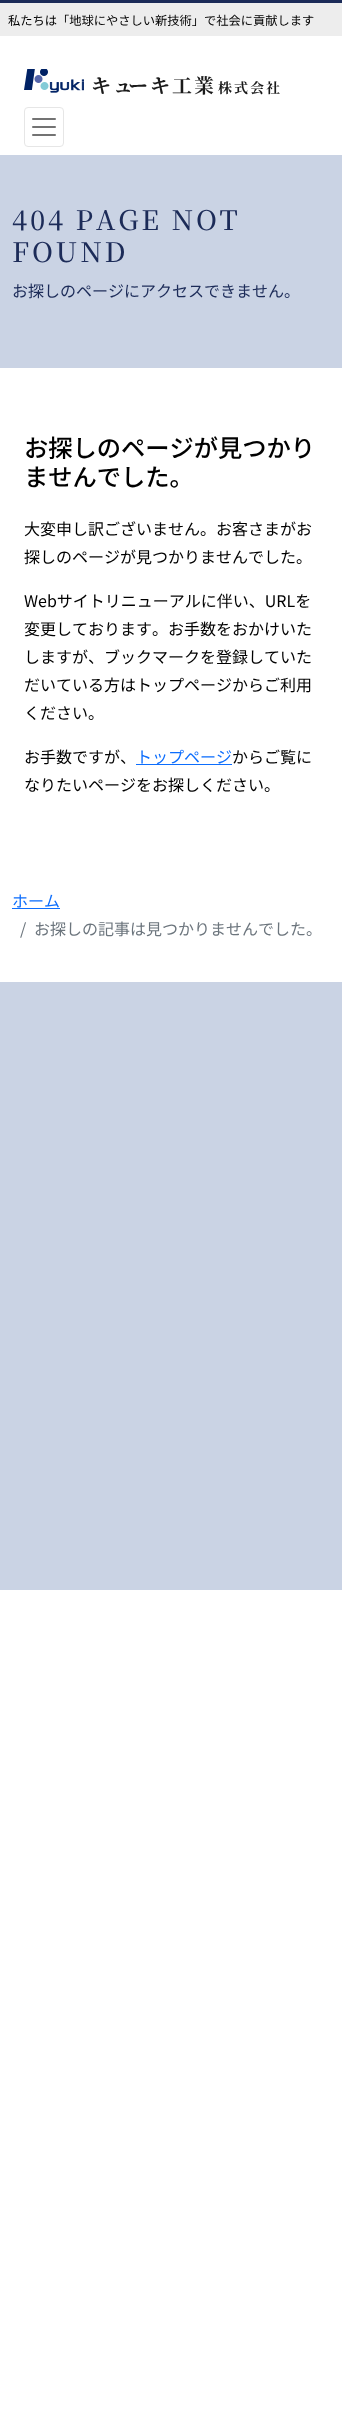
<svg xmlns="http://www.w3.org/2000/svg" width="342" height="2409">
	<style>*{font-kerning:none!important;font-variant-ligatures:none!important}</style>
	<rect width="100%" height="100%" fill="#FFFFFF" />
	<rect x="0" y="0" width="342" height="3" fill="#1C2B58" />
	<rect x="0" y="3" width="342" height="33" fill="#EDEDED" />
	<text x="8" y="25" font-family="Noto Sans JP" font-size="12.25" fill="#000000">私たちは「地球にやさしい新技術」で社会に貢献します</text>
	<image x="24" y="69" width="60" height="24" href="assets/img1.png" />
	<text x="91" y="93" font-family="Noto Serif JP" font-size="20" font-weight="700" letter-spacing="2" fill="#1A1A1A">キュ</text>
	<text x="128" y="93" font-family="Noto Serif JP" font-size="20" font-weight="700" letter-spacing="2" fill="#1A1A1A">ーキ工業</text>
	<text x="218" y="93" font-family="Noto Serif JP" font-size="14" font-weight="700" letter-spacing="2" fill="#1A1A1A">株式会社</text>
	<rect x="24.5" y="107.5" width="39" height="39" rx="3.5" fill="none" stroke="#E6E6E6" />
	<image x="32" y="118" width="24" height="18" href="assets/img2.png" />
	<rect x="0" y="155" width="342" height="213" fill="#CAD3E4" />
	<g font-family="Noto Serif JP" font-size="27.1" font-weight="500" letter-spacing="2.75" fill="#1C2B58">
		<text x="12" y="230">404 PAGE NOT</text>
		<text x="12" y="262">FOUND</text>
	</g>
	<text x="12" y="297" font-family="Noto Sans JP" font-size="16" fill="#1C2B58">お探しのページにアクセスできません。</text>
	<g font-family="Noto Sans JP" font-size="24.25" font-weight="500" fill="#000000">
		<text x="24" y="457">お探しのページが見つかり</text>
		<text x="24" y="486">ませんでした。</text>
	</g>
	<g font-family="Noto Sans JP" font-size="16" fill="#000000">
		<text x="24" y="535">大変申し訳ございません。お客さまがお</text>
		<text x="24" y="563">探しのページが見つかりませんでした。</text>
		<text x="24" y="607">Webサイトリニューアルに伴い、URLを</text>
		<text x="24" y="635">変更しております。お手数をおかけいた</text>
		<text x="24" y="663">しますが、ブックマークを登録していた</text>
		<text x="24" y="691">だいている方はトップページからご利用</text>
		<text x="24" y="719">ください。</text>
		<text x="24" y="763">お手数ですが、</text>
	</g>
	<rect x="136" y="764" width="96" height="1" fill="#0D6EFD" />
	<text x="136" y="763" font-family="Noto Sans JP" font-size="16" fill="#0D6EFD">トップページ</text>
	<g font-family="Noto Sans JP" font-size="16" fill="#000000">
		<text x="232" y="763">からご覧に</text>
		<text x="24" y="791">なりたいページをお探しください。</text>
	</g>
	<text x="12" y="907" font-family="Noto Sans JP" font-size="16" fill="#0D6EFD">ホーム</text>
	<rect x="12" y="908" width="48" height="1" fill="#0D6EFD" />
	<g font-family="Noto Sans JP" font-size="16" fill="#6C757D">
		<text x="20" y="935">/</text>
		<text x="34" y="935">お探しの記事は見つかりませんでした。</text>
	</g>
	<rect x="0" y="982" width="342" height="608" fill="#CAD3E4" />
</svg>
